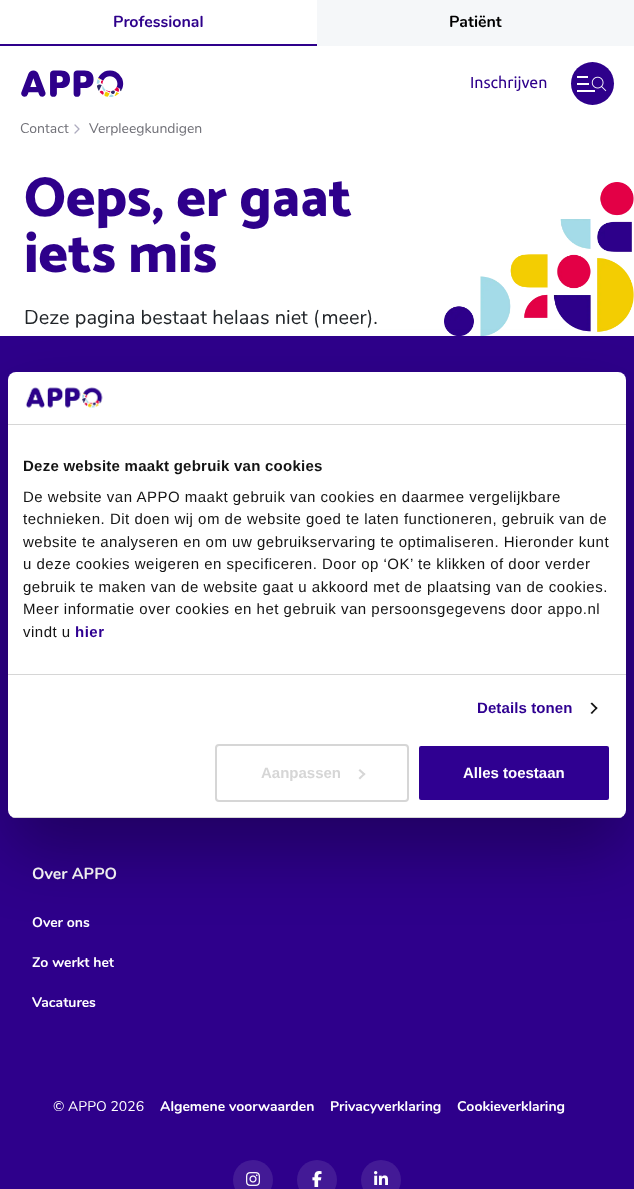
<svg xmlns="http://www.w3.org/2000/svg" width="634" height="1189">
	<defs>
		<clipPath id="clip1"><rect x="8" y="372" width="618" height="446" rx="8" /></clipPath>
	</defs>
	<rect width="100%" height="100%" fill="#FFFFFF" />
	<rect x="0" y="44" width="317" height="2" fill="#2E008B" />
	<text x="113" y="27" font-family="Nunito" font-size="16" font-weight="700" fill="#2E008B">Professional</text>
	<rect x="317" y="0" width="317" height="46" fill="#F5F7F9" />
	<text x="449" y="27" font-family="Nunito" font-size="16" font-weight="700" fill="#000000">Patiënt</text>
	<image x="21" y="70" width="103" height="27" href="assets/img1.png" />
	<text x="470" y="88" font-family="Ubuntu" font-size="16" fill="#2E008B">Inschrijven</text>
	<circle cx="592.5" cy="83.5" r="21.5" fill="#2E008B" />
	<rect x="577" y="76" width="11" height="2" fill="#FFFFFF" />
	<rect x="577" y="90" width="18" height="2" fill="#FFFFFF" />
	<image x="591" y="76" width="16" height="16" href="assets/img2.png" />
	<rect x="577" y="83" width="12" height="2" fill="#FFFFFF" />
	<text x="20" y="133" font-family="Nunito" font-size="14" fill="#717178">Contact</text>
	<path d="M75 133L79 129L75 125" fill="none" stroke="#AEACBF" stroke-width="1.3" stroke-linecap="round" stroke-linejoin="round" />
	<text x="89" y="133" font-family="Nunito" font-size="14" fill="#717178">Verpleegkundigen</text>
	<g font-family="Catamaran" font-size="56" font-weight="800" fill="#2E008B">
		<text x="24" y="216">Oeps, er gaat</text>
		<text x="24" y="272">iets mis</text>
	</g>
	<text x="24" y="324" font-family="Nunito" font-size="20" fill="#212529">Deze pagina bestaat helaas niet (meer).</text>
	<image x="444" y="182" width="190" height="154" href="assets/img3.png" />
	<rect x="0" y="336" width="634" height="853" fill="#2E008B" />
	<text x="32" y="879" font-family="Nunito" font-size="16" font-weight="700" fill="#FFFFFF">Over APPO</text>
	<g font-family="Nunito" font-size="14" font-weight="700" fill="#FFFFFF">
		<text x="32" y="927">Over ons</text>
		<text x="32" y="967">Zo werkt het</text>
		<text x="32" y="1007">Vacatures</text>
	</g>
	<text x="53" y="1111" font-family="Nunito" font-size="14" fill="#FFFFFF">© APPO 2026</text>
	<g font-family="Nunito" font-size="14" font-weight="700" fill="#FFFFFF">
		<text x="160" y="1111">Algemene voorwaarden</text>
		<text x="330" y="1111">Privacyverklaring</text>
		<text x="457" y="1111">Cookieverklaring</text>
	</g>
	<circle cx="253" cy="1180" r="20" fill="#431A96" />
	<image x="246" y="1172" width="14" height="14" href="assets/img4.png" />
	<circle cx="317" cy="1180" r="20" fill="#431A96" />
	<image x="312" y="1171" width="10" height="16" href="assets/img5.png" />
	<circle cx="381" cy="1180" r="20" fill="#431A96" />
	<image x="374" y="1171" width="14" height="14" href="assets/img6.png" />
	<rect x="8" y="404" width="618" height="446" rx="8" fill="#000000" fill-opacity="0.3" filter="blur(34px)" />
	<rect x="8" y="372" width="618" height="446" rx="8" fill="#FFFFFF" />
	<rect x="8" y="424" width="618" height="1" fill="#D6D6D6" />
	<image x="25" y="387" width="78" height="21" href="assets/img7.png" />
	<rect x="8" y="674" width="618" height="1" fill="#D6D6D6" />
	<text x="23" y="471" font-family="Liberation Sans" font-size="15" font-weight="700" letter-spacing="0.25" fill="#141414">Deze website maakt gebruik van cookies</text>
	<g font-family="Liberation Sans" font-size="15" letter-spacing="0.5" fill="#141414">
		<text x="23" y="502">De website van APPO maakt gebruik van cookies en daarmee vergelijkbare</text>
		<text x="23" y="524">technieken. Dit doen wij om de website goed te laten functioneren, gebruik van de</text>
		<text x="23" y="547">website te analyseren en om uw gebruikservaring te optimaliseren. Hieronder kunt</text>
		<text x="23" y="569">u deze cookies weigeren en specificeren. Door op ‘OK’ te klikken of door verder</text>
		<text x="23" y="592">gebruik te maken van de website gaat u akkoord met de plaatsing van de cookies.</text>
		<text x="23" y="614">Meer informatie over cookies en het gebruik van persoonsgegevens door appo.nl</text>
		<text x="23" y="637">vindt u</text>
	</g>
	<text x="75" y="637" font-family="Liberation Sans" font-size="15" font-weight="700" letter-spacing="0.5" fill="#2F0091">hier</text>
	<text x="477" y="713" font-family="Liberation Sans" font-size="15" font-weight="700" letter-spacing="0.1" fill="#2F0091">Details tonen</text>
	<path d="M592 702.5L597.5 708L596.5 709.5L590.5 703.5Z" fill="#141414" />
	<path d="M596.5 707L597.5 708L592 714L590.5 713Z" fill="#141414" />
	<g clip-path="url(#clip1)">
		<rect x="8" y="817" width="618" height="1" fill="#D6D6D6" />
	</g>
	<rect x="216" y="745" width="192" height="56" rx="3" fill="none" stroke="#D6D6D6" stroke-width="2" />
	<text x="261" y="778" font-family="Liberation Sans" font-size="15" font-weight="700" fill="#D6D6D6">Aanpassen</text>
	<path d="M360 769L365.5 774L364 775.5L358.5 770.5Z" fill="#D6D6D6" />
	<path d="M364 773L365.5 774L360 779.5L358.5 778Z" fill="#D6D6D6" />
	<rect x="418" y="745" width="192" height="56" rx="3" fill="#2F0091" stroke="#FFFFFF" stroke-width="2" />
	<text x="463" y="778" font-family="Liberation Sans" font-size="15" font-weight="700" fill="#FFFFFF">Alles toestaan</text>
</svg>
